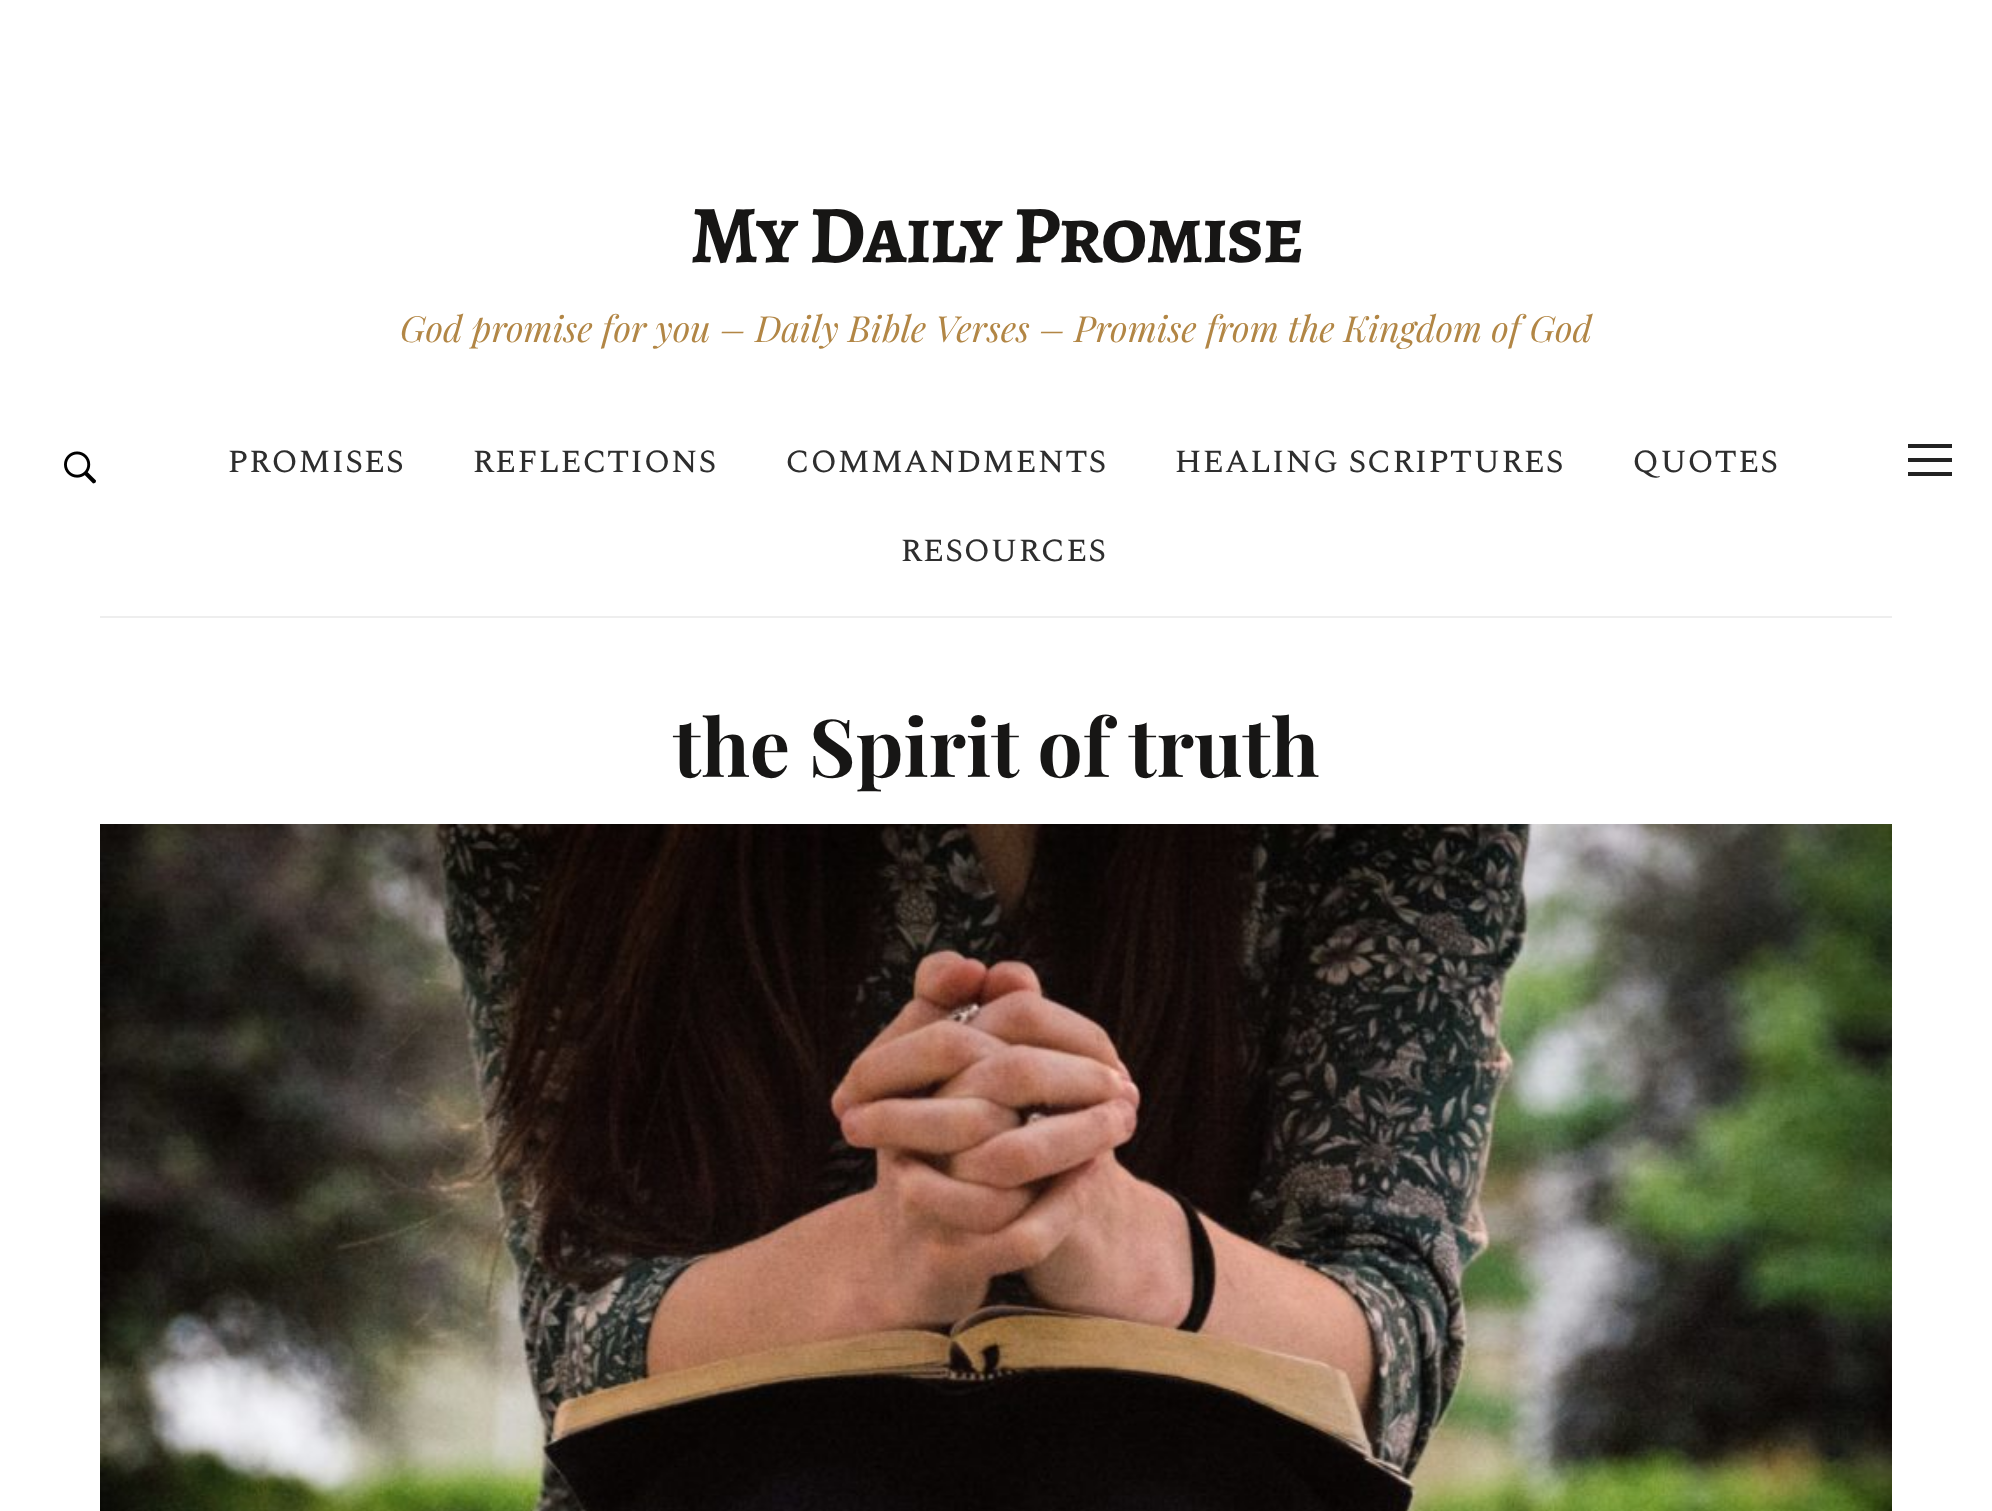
<svg xmlns="http://www.w3.org/2000/svg" width="1992" height="1511">
	<rect width="100%" height="100%" fill="#FFFFFF" />
	<text x="690" y="262" font-family="Alegreya SC" font-size="82" font-weight="700" letter-spacing="-2" fill="#171615">My Daily Promise</text>
	<text x="400" y="342" font-family="Playfair Display" font-size="36" font-style="italic" fill="#B28645">God promise for you – Daily Bible Verses – Promise from the Kingdom of God</text>
	<image x="64" y="451" width="32" height="33" href="assets/img1.png" />
	<g font-family="Spectral SC" font-size="38" fill="#2E2E2E">
		<text x="227" y="472">promises</text>
		<text x="472" y="472">reflections</text>
		<text x="785" y="472">commandments</text>
		<text x="1174" y="472">healing scriptures</text>
		<text x="1632" y="472">quotes</text>
		<text x="900" y="561">resources</text>
	</g>
	<rect x="1908" y="444" width="44" height="4" fill="#222222" />
	<rect x="1908" y="458" width="44" height="4" fill="#222222" />
	<rect x="1908" y="472" width="44" height="4" fill="#222222" />
	<rect x="100" y="616" width="1792" height="2" fill="#EEEEEE" />
	<text x="673" y="777" font-family="Playfair Display" font-size="80" font-weight="700" fill="#171615">the Spirit of truth</text>
	<image x="100" y="824" width="1792" height="687" href="assets/img2.png" />
</svg>
